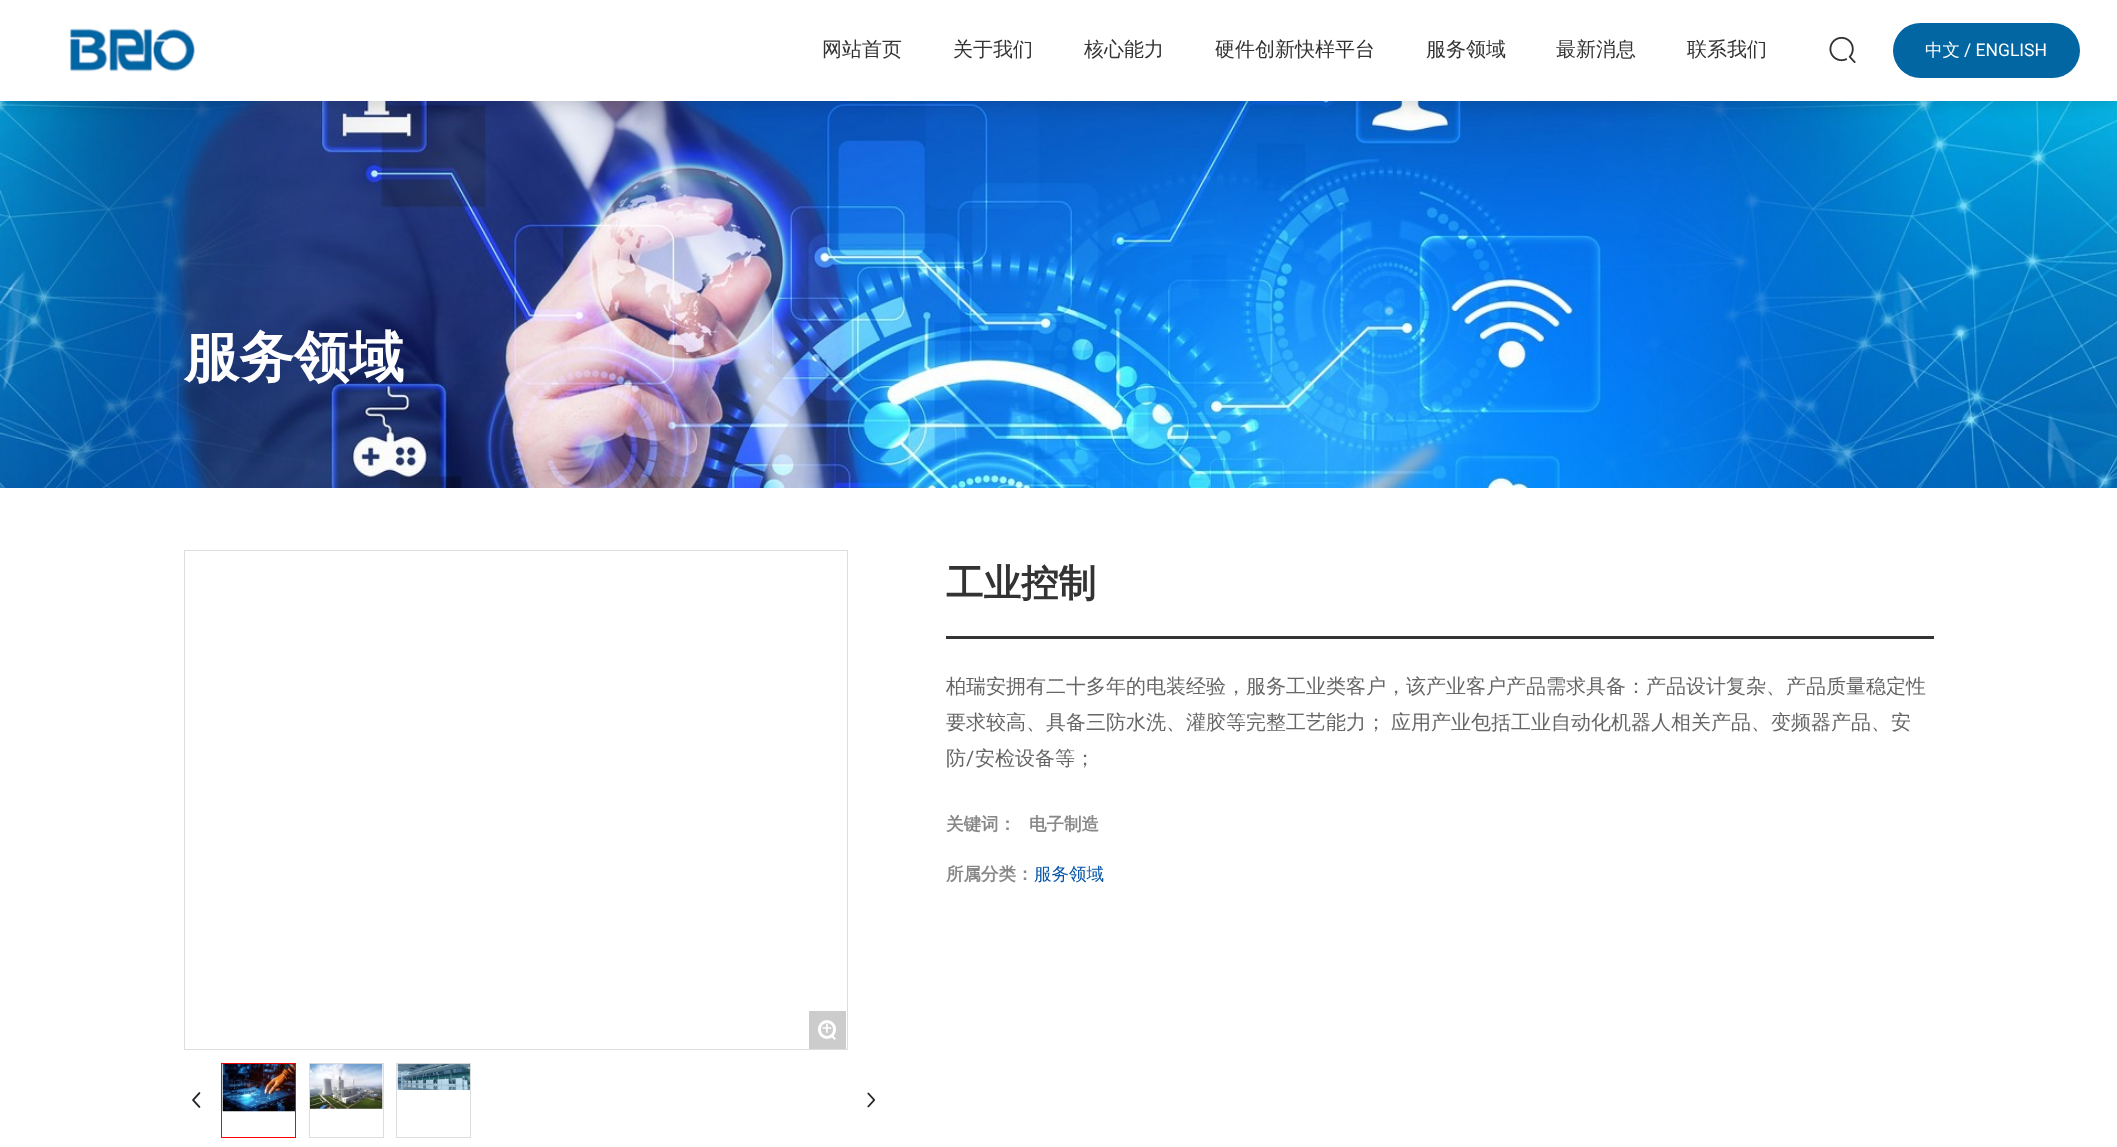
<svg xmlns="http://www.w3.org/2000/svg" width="2117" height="1147">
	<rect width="100%" height="100%" fill="#FFFFFF" />
	<image x="0" y="101" width="2117" height="387" href="assets/img3.png" />
	<rect x="0" y="0" width="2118" height="101" fill="#000000" fill-opacity="0.2" filter="blur(9.5px)" />
	<rect x="0" y="0" width="2117" height="101" fill="#FFFFFF" />
	<image x="70" y="28" width="126" height="44" href="assets/img1.png" />
	<g font-family="WenQuanYi Zen Hei" font-size="20" font-weight="500" fill="#333333">
		<text x="822" y="56">网站首页</text>
		<text x="953" y="56">关于我们</text>
		<text x="1084" y="56">核心能力</text>
		<text x="1215" y="56">硬件创新快样平台</text>
		<text x="1426" y="56">服务领域</text>
		<text x="1556" y="56">最新消息</text>
		<text x="1687" y="56">联系我们</text>
	</g>
	<image x="1829" y="36" width="27" height="28" href="assets/img2.png" />
	<rect x="1893" y="23" width="187" height="55" rx="27.5" fill="#0266A2" />
	<text x="1925" y="56" font-family="WenQuanYi Zen Hei" font-size="17.5" font-weight="500" fill="#FFFFFF">中文</text>
	<text x="1964" y="56" font-family="Roboto" font-size="17.5" fill="#FFFFFF">/ ENGLISH</text>
	<text x="184" y="376" font-family="WenQuanYi Zen Hei" font-size="55" font-weight="700" fill="#FFFFFF">服务领域</text>
	<rect x="946" y="636" width="988" height="3" fill="#333333" />
	<text x="946" y="596" font-family="WenQuanYi Zen Hei" font-size="37.5" font-weight="700" fill="#333333">工业控制</text>
	<g font-family="WenQuanYi Zen Hei" font-size="20" font-weight="500" fill="#666666">
		<text x="946" y="693">柏瑞安拥有二十多年的电装经验，服务工业类客户，该产业客户产品需求具备：产品设计复杂、产品质量稳定性</text>
		<text x="946" y="729" word-spacing="-1">要求较高、具备三防水洗、灌胶等完整工艺能力； 应用产业包括工业自动化机器人相关产品、变频器产品、安</text>
		<text x="946" y="765">防</text>
	</g>
	<text x="966" y="765" font-family="Roboto" font-size="20" fill="#666666">/</text>
	<text x="975" y="765" font-family="WenQuanYi Zen Hei" font-size="20" font-weight="500" fill="#666666">安检设备等；</text>
	<g font-family="WenQuanYi Zen Hei" font-size="17.5" font-weight="700" fill="#888888">
		<text x="946" y="830">关键词：</text>
		<text x="1029" y="830">电子制造</text>
		<text x="946" y="880">所属分类：</text>
	</g>
	<text x="1034" y="880" font-family="WenQuanYi Zen Hei" font-size="17.5" font-weight="500" fill="#0656A9">服务领域</text>
	<rect x="184.5" y="550.5" width="663" height="499" fill="none" stroke="#DDDDDD" />
	<rect x="809" y="1011" width="37" height="38" fill="#CCCCCC" />
	<rect x="819.5" y="1021.5" width="15" height="16" rx="7.5" fill="none" stroke="#FFFFFF" stroke-width="3" />
	<text x="822" y="1034" font-family="Roboto" font-size="17.5" fill="#FFFFFF">+</text>
	<path d="M831.5 1034L836 1038.5L834.5 1040L830 1035.5Z" fill="#FFFFFF" />
	<rect x="221.5" y="1063.5" width="74" height="74" fill="none" stroke="#FF0000" />
	<image x="222" y="1063" width="73" height="49" href="assets/img4.png" />
	<rect x="309.5" y="1063.5" width="74" height="74" fill="none" stroke="#DDDDDD" />
	<image x="310" y="1063" width="73" height="46" href="assets/img5.png" />
	<rect x="396.5" y="1063.5" width="74" height="74" fill="none" stroke="#DDDDDD" />
	<image x="397" y="1063" width="73" height="27" href="assets/img6.png" />
	<image x="192" y="1092" width="9" height="16" href="assets/img7.png" />
	<image x="867" y="1092" width="9" height="16" href="assets/img8.png" />
</svg>
